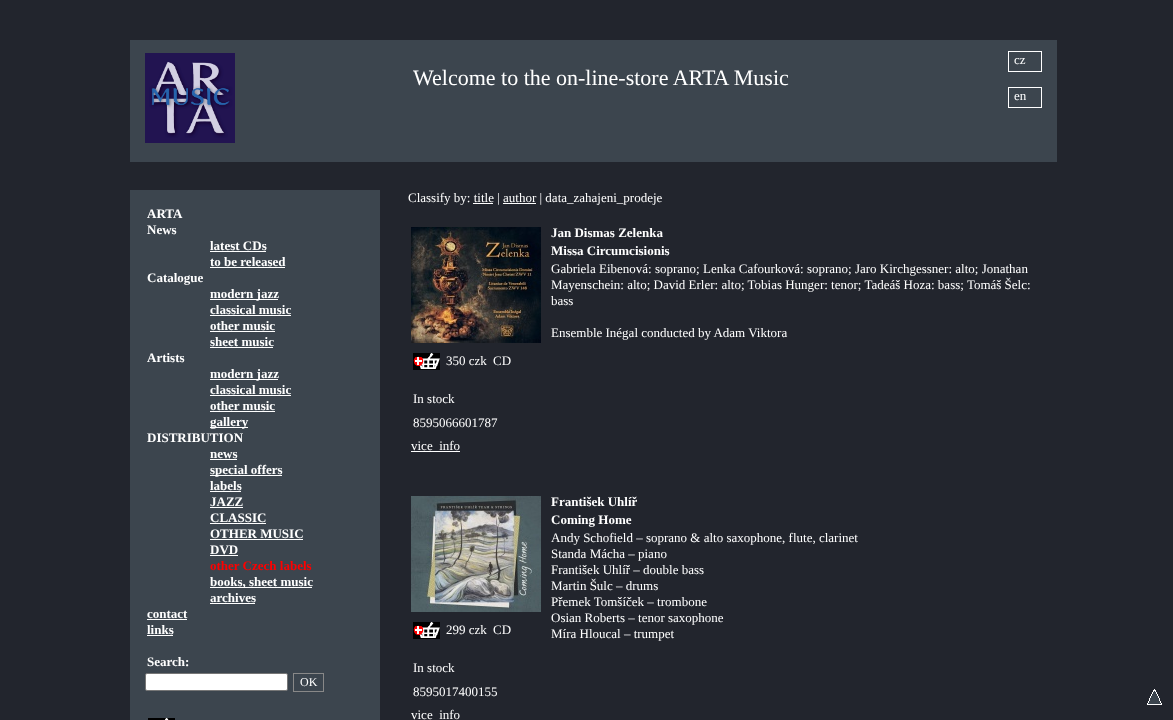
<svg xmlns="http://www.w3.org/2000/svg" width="1173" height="720">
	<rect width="100%" height="100%" fill="#22252D" />
	<rect x="130" y="40" width="927" height="122" fill="#3C454E" />
	<image x="145" y="53" width="90" height="90" href="assets/img1.png" />
	<rect x="1008.5" y="51.5" width="33" height="20" fill="none" stroke="#FFFFFF" />
	<text x="1014" y="64" font-family="Liberation Serif" font-size="13" fill="#FFFFFF">cz</text>
	<text x="413" y="85" font-family="Liberation Serif" font-size="22" fill="#FFFFFF">Welcome to the on-line-store ARTA Music</text>
	<rect x="1008.5" y="87.5" width="33" height="20" fill="none" stroke="#FFFFFF" />
	<text x="1014" y="100" font-family="Liberation Serif" font-size="13" fill="#FFFFFF">en</text>
	<rect x="130" y="190" width="250" height="530" fill="#3C454E" />
	<g font-family="Liberation Serif" font-size="13" font-weight="700" fill="#FFFFFF">
		<text x="147" y="218">ARTA</text>
		<text x="147" y="234">News</text>
		<text x="210" y="250">latest CDs</text>
	</g>
	<rect x="210" y="251" width="56" height="1" fill="#FFFFFF" />
	<text x="210" y="266" font-family="Liberation Serif" font-size="13" font-weight="700" fill="#FFFFFF">to be released</text>
	<rect x="210" y="267" width="75" height="1" fill="#FFFFFF" />
	<text x="147" y="282" font-family="Liberation Serif" font-size="13" font-weight="700" fill="#FFFFFF">Catalogue</text>
	<rect x="210" y="299" width="68" height="1" fill="#FFFFFF" />
	<g font-family="Liberation Serif" font-size="13" font-weight="700" fill="#FFFFFF">
		<text x="210" y="298">modern jazz</text>
		<text x="210" y="314">classical music</text>
	</g>
	<rect x="210" y="315" width="81" height="1" fill="#FFFFFF" />
	<text x="210" y="330" font-family="Liberation Serif" font-size="13" font-weight="700" fill="#FFFFFF">other music</text>
	<rect x="210" y="331" width="65" height="1" fill="#FFFFFF" />
	<text x="210" y="346" font-family="Liberation Serif" font-size="13" font-weight="700" fill="#FFFFFF">sheet music</text>
	<rect x="210" y="347" width="63" height="1" fill="#FFFFFF" />
	<text x="147" y="362" font-family="Liberation Serif" font-size="13" font-weight="700" fill="#FFFFFF">Artists</text>
	<rect x="210" y="379" width="68" height="1" fill="#FFFFFF" />
	<g font-family="Liberation Serif" font-size="13" font-weight="700" fill="#FFFFFF">
		<text x="210" y="378">modern jazz</text>
		<text x="210" y="394">classical music</text>
	</g>
	<rect x="210" y="395" width="81" height="1" fill="#FFFFFF" />
	<text x="210" y="410" font-family="Liberation Serif" font-size="13" font-weight="700" fill="#FFFFFF">other music</text>
	<rect x="210" y="411" width="65" height="1" fill="#FFFFFF" />
	<rect x="210" y="427" width="38" height="1" fill="#FFFFFF" />
	<g font-family="Liberation Serif" font-size="13" font-weight="700" fill="#FFFFFF">
		<text x="210" y="426">gallery</text>
		<text x="147" y="442">DISTRIBUTION</text>
		<text x="210" y="458">news</text>
	</g>
	<rect x="210" y="459" width="27" height="1" fill="#FFFFFF" />
	<rect x="210" y="475" width="72" height="1" fill="#FFFFFF" />
	<g font-family="Liberation Serif" font-size="13" font-weight="700" fill="#FFFFFF">
		<text x="210" y="474">special offers</text>
		<text x="210" y="490">labels</text>
	</g>
	<rect x="210" y="491" width="31" height="1" fill="#FFFFFF" />
	<text x="210" y="506" font-family="Liberation Serif" font-size="13" font-weight="700" fill="#FFFFFF">JAZZ</text>
	<rect x="210" y="507" width="33" height="1" fill="#FFFFFF" />
	<text x="210" y="522" font-family="Liberation Serif" font-size="13" font-weight="700" fill="#FFFFFF">CLASSIC</text>
	<rect x="210" y="523" width="56" height="1" fill="#FFFFFF" />
	<text x="210" y="538" font-family="Liberation Serif" font-size="13" font-weight="700" fill="#FFFFFF">OTHER MUSIC</text>
	<rect x="210" y="539" width="93" height="1" fill="#FFFFFF" />
	<text x="210" y="554" font-family="Liberation Serif" font-size="13" font-weight="700" fill="#FFFFFF">DVD</text>
	<rect x="210" y="555" width="28" height="1" fill="#FFFFFF" />
	<text x="210" y="570" font-family="Liberation Serif" font-size="13" font-weight="700" fill="#FF0000">other Czech labels</text>
	<rect x="210" y="587" width="102" height="1" fill="#FFFFFF" />
	<g font-family="Liberation Serif" font-size="13" font-weight="700" fill="#FFFFFF">
		<text x="210" y="586">books, sheet music</text>
		<text x="210" y="602">archives</text>
	</g>
	<rect x="210" y="603" width="45" height="1" fill="#FFFFFF" />
	<text x="147" y="618" font-family="Liberation Serif" font-size="13" font-weight="700" fill="#FFFFFF">contact</text>
	<rect x="147" y="619" width="40" height="1" fill="#FFFFFF" />
	<text x="147" y="634" font-family="Liberation Serif" font-size="13" font-weight="700" fill="#FFFFFF">links</text>
	<rect x="147" y="635" width="26" height="1" fill="#FFFFFF" />
	<text x="147" y="666" font-family="Liberation Serif" font-size="13" font-weight="700" fill="#FFFFFF">Search:</text>
	<rect x="145.5" y="673.5" width="142" height="17" rx="1.5" fill="#FFFFFF" stroke="#767676" />
	<rect x="293.5" y="673.5" width="30" height="18" fill="none" stroke="#888888" />
	<text x="300" y="686" font-family="Liberation Serif" font-size="12" fill="#FFFFFF">OK</text>
	<image x="148" y="718" width="27" height="2" href="assets/img2.png" />
	<text x="408" y="202" font-family="Liberation Serif" font-size="13" fill="#FFFFFF">Classify by: title | author | data_zahajeni_prodeje</text>
	<rect x="473" y="203" width="20" height="1" fill="#FFFFFF" />
	<rect x="503" y="203" width="33" height="1" fill="#FFFFFF" />
	<g font-family="Liberation Serif" font-size="13" font-weight="700" fill="#FFFFFF">
		<text x="551" y="237">Jan Dismas Zelenka</text>
		<text x="551" y="255">Missa Circumcisionis</text>
	</g>
	<g font-family="Liberation Serif" font-size="13" fill="#FFFFFF">
		<text x="551" y="273">Gabriela Eibenová: soprano; Lenka Cafourková: soprano; Jaro Kirchgessner: alto; Jonathan</text>
		<text x="551" y="289">Mayenschein: alto; David Erler: alto; Tobias Hunger: tenor; Tadeáš Hoza: bass; Tomáš Šelc:</text>
		<text x="551" y="305">bass</text>
		<text x="551" y="337">Ensemble Inégal conducted by Adam Viktora</text>
	</g>
	<image x="411" y="227" width="130" height="116" href="assets/img3.png" />
	<image x="413" y="353" width="27" height="17" href="assets/img4.png" />
	<g font-family="Liberation Serif" font-size="13" fill="#FFFFFF">
		<text x="446" y="365">350 czk</text>
		<text x="493" y="365">CD</text>
		<text x="413" y="403">In stock</text>
		<text x="413" y="427">8595066601787</text>
	</g>
	<rect x="411" y="451" width="49" height="1" fill="#FFFFFF" />
	<text x="411" y="450" font-family="Liberation Serif" font-size="13" fill="#FFFFFF">vice_info</text>
	<g font-family="Liberation Serif" font-size="13" font-weight="700" fill="#FFFFFF">
		<text x="551" y="506">František Uhlíř</text>
		<text x="551" y="524">Coming Home</text>
	</g>
	<g font-family="Liberation Serif" font-size="13" fill="#FFFFFF">
		<text x="551" y="542">Andy Schofield – soprano &amp; alto saxophone, flute, clarinet</text>
		<text x="551" y="558">Standa Mácha – piano</text>
		<text x="551" y="574">František Uhlíř – double bass</text>
		<text x="551" y="590">Martin Šulc – drums</text>
		<text x="551" y="606">Přemek Tomšíček – trombone</text>
		<text x="551" y="622">Osian Roberts – tenor saxophone</text>
		<text x="551" y="638">Míra Hloucal – trumpet</text>
	</g>
	<image x="411" y="496" width="130" height="116" href="assets/img5.png" />
	<image x="413" y="622" width="27" height="17" href="assets/img4.png" />
	<g font-family="Liberation Serif" font-size="13" fill="#FFFFFF">
		<text x="446" y="634">299 czk</text>
		<text x="493" y="634">CD</text>
		<text x="413" y="672">In stock</text>
		<text x="413" y="696">8595017400155</text>
		<text x="411" y="719">vice_info</text>
	</g>
	<image x="1147" y="689" width="15" height="16" href="assets/img6.png" />
</svg>
